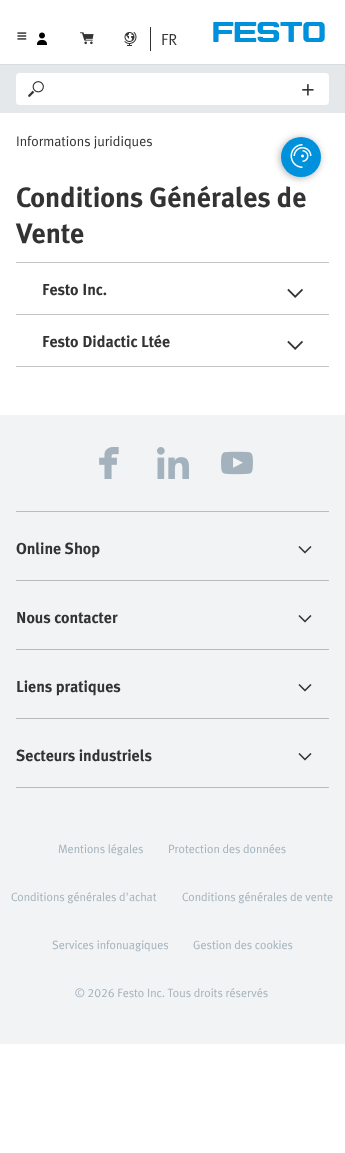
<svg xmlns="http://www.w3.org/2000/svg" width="345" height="1153">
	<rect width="100%" height="100%" fill="#FFFFFF" />
	<image x="17" y="32" width="10" height="8" href="assets/img1.png" />
	<image x="37" y="32" width="10" height="13" href="assets/img2.png" />
	<image x="80" y="32" width="14" height="13" href="assets/img3.png" />
	<image x="124" y="31" width="13" height="15" href="assets/img4.png" />
	<rect x="150" y="27" width="1" height="24" fill="#333333" />
	<text x="161" y="45" font-family="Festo" font-size="16" fill="#333333">FR</text>
	<image x="213" y="22" width="112" height="20" href="assets/img5.png" />
	<rect x="0" y="65" width="345" height="48" fill="#E5E8EB" />
	<rect x="0" y="64" width="345" height="1" fill="#D8DCE1" />
	<rect x="16" y="73" width="313" height="32" rx="4" fill="#FFFFFF" />
	<image x="28" y="81" width="16" height="16" href="assets/img6.png" />
	<image x="302" y="84" width="12" height="12" href="assets/img7.png" />
	<text x="16" y="146" font-family="Festo" font-size="14" fill="#333333">Informations juridiques</text>
	<rect x="280" y="138" width="40" height="40" rx="20" fill="#333333" fill-opacity="0.2" filter="blur(3.5px)" />
	<rect x="280" y="138" width="40" height="40" rx="20" fill="#333333" fill-opacity="0.2" filter="blur(3.5px)" />
	<circle cx="301" cy="157" r="20" fill="#0091DC" />
	<image x="290" y="144" width="22" height="24" href="assets/img8.png" />
	<g font-family="Festo" font-size="28" font-weight="700" fill="#333333">
		<text x="16" y="207">Conditions Générales de</text>
		<text x="16" y="243">Vente</text>
	</g>
	<rect x="16" y="262" width="313" height="1" fill="#C4C4C4" />
	<text x="42" y="295" font-family="Festo" font-size="16" font-weight="700" fill="#333333">Festo Inc.</text>
	<image x="287" y="288" width="16" height="10" href="assets/img9.png" />
	<rect x="16" y="314" width="313" height="1" fill="#C4C4C4" />
	<rect x="16" y="366" width="313" height="1" fill="#C4C4C4" />
	<text x="42" y="347" font-family="Festo" font-size="16" font-weight="700" fill="#333333">Festo Didactic Ltée</text>
	<image x="287" y="340" width="16" height="10" href="assets/img9.png" />
	<rect x="0" y="415" width="345" height="629" fill="#F2F3F5" />
	<image x="99" y="447" width="20" height="32" href="assets/img10.png" />
	<image x="157" y="447" width="32" height="32" href="assets/img11.png" />
	<image x="221" y="451" width="32" height="24" href="assets/img12.png" />
	<rect x="16" y="511" width="313" height="1" fill="#B1BEC6" />
	<rect x="16" y="580" width="313" height="1" fill="#B9BABB" />
	<text x="16" y="554" font-family="Festo" font-size="16" font-weight="700" fill="#333333">Online Shop</text>
	<image x="298" y="546" width="14" height="8" href="assets/img13.png" />
	<rect x="16" y="649" width="313" height="1" fill="#B9BABB" />
	<text x="16" y="623" font-family="Festo" font-size="16" font-weight="700" fill="#333333">Nous contacter</text>
	<image x="298" y="615" width="14" height="8" href="assets/img13.png" />
	<rect x="16" y="718" width="313" height="1" fill="#B9BABB" />
	<text x="16" y="692" font-family="Festo" font-size="16" font-weight="700" fill="#333333">Liens pratiques</text>
	<image x="298" y="684" width="14" height="8" href="assets/img13.png" />
	<rect x="16" y="787" width="313" height="1" fill="#B9BABB" />
	<text x="16" y="761" font-family="Festo" font-size="16" font-weight="700" fill="#333333">Secteurs industriels</text>
	<image x="298" y="753" width="14" height="8" href="assets/img13.png" />
	<g font-family="Festo" font-size="12" fill="#A3B2BC">
		<text x="58" y="853">Mentions légales</text>
		<text x="168" y="853">Protection des données</text>
		<text x="11" y="901">Conditions générales d'achat</text>
		<text x="182" y="901">Conditions générales de vente</text>
		<text x="52" y="949">Services infonuagiques</text>
		<text x="193" y="949">Gestion des cookies</text>
		<text x="75" y="997">© 2026 Festo Inc. Tous droits réservés</text>
	</g>
</svg>
